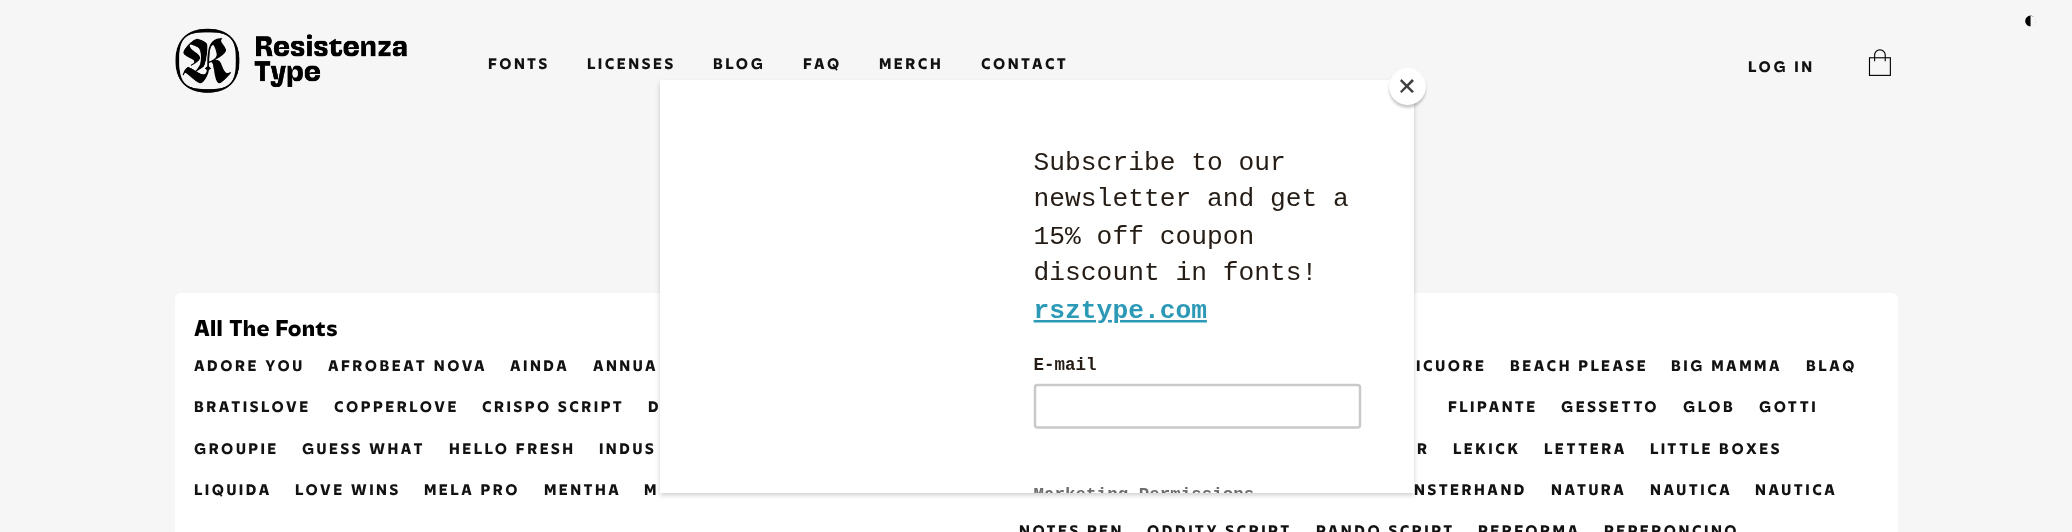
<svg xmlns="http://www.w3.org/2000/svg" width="2072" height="532">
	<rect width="100%" height="100%" fill="#F6F6F6" />
	<text x="2023" y="28" font-family="Liberation Sans" font-size="25" fill="#000000">◐</text>
	<image x="175" y="28" width="232" height="65" href="assets/img1.png" />
	<g font-family="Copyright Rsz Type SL" font-size="15" font-weight="700" letter-spacing="2.5" fill="#121212">
		<text x="488" y="69">FONTS</text>
		<text x="587" y="69">LICENSES</text>
		<text x="713" y="69">BLOG</text>
		<text x="803" y="69">FAQ</text>
		<text x="879" y="69">MERCH</text>
		<text x="981" y="69">CONTACT</text>
		<text x="1748" y="72">LOG IN</text>
	</g>
	<image x="1868" y="49" width="23" height="27" href="assets/img2.png" />
	<rect x="175" y="293" width="1723" height="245" rx="6" fill="#FFFFFF" />
	<rect x="660" y="83" width="754" height="412" fill="#000000" fill-opacity="0.2" filter="blur(2.5px)" />
	<image x="660" y="80" width="754" height="413" href="assets/img3.png" />
	<rect x="1389" y="70" width="37" height="38" rx="18.5" fill="#000000" fill-opacity="0.2" filter="blur(1px)" />
	<circle cx="1407.5" cy="86.5" r="18.5" fill="#FFFFFF" />
	<path d="M1412 79L1414 81L1401.5 93L1400 91.5Z" fill="#414141" />
	<path d="M1400 81L1401.5 79L1414 91.5L1412 93Z" fill="#414141" />
	<text x="194" y="336" font-family="Copyright Rsz Type SL" font-size="22.5" font-weight="700" fill="#000000">All The Fonts</text>
	<g font-family="Copyright Rsz Type SL" font-size="15" font-weight="700" letter-spacing="2.5" fill="#121212">
		<text x="194" y="371">ADORE YOU</text>
		<text x="328" y="371">AFROBEAT NOVA</text>
		<text x="510" y="371">AINDA</text>
		<text x="593" y="371">ANNUA</text>
		<text x="1416" y="371">ICUORE</text>
		<text x="1510" y="371">BEACH PLEASE</text>
		<text x="1671" y="371">BIG MAMMA</text>
		<text x="1806" y="371">BLAQ</text>
		<text x="194" y="412">BRATISLOVE</text>
		<text x="334" y="412">COPPERLOVE</text>
		<text x="482" y="412">CRISPO SCRIPT</text>
		<text x="648" y="412">D</text>
		<text x="1448" y="412">FLIPANTE</text>
		<text x="1561" y="412">GESSETTO</text>
		<text x="1683" y="412">GLOB</text>
		<text x="1759" y="412">GOTTI</text>
		<text x="194" y="454">GROUPIE</text>
		<text x="302" y="454">GUESS WHAT</text>
		<text x="449" y="454">HELLO FRESH</text>
		<text x="599" y="454">INDUS</text>
		<text x="1417" y="454">R</text>
		<text x="1453" y="454">LEKICK</text>
		<text x="1544" y="454">LETTERA</text>
		<text x="1650" y="454">LITTLE BOXES</text>
		<text x="194" y="495">LIQUIDA</text>
		<text x="295" y="495">LOVE WINS</text>
		<text x="424" y="495">MELA PRO</text>
		<text x="544" y="495">MENTHA</text>
		<text x="644" y="495">M</text>
		<text x="1414" y="495">NSTERHAND</text>
		<text x="1551" y="495">NATURA</text>
		<text x="1650" y="495">NAUTICA</text>
		<text x="1755" y="495">NAUTICA</text>
		<text x="1019" y="536">NOTES PEN</text>
		<text x="1147" y="536">ODDITY SCRIPT</text>
		<text x="1316" y="536">PANDO SCRIPT</text>
		<text x="1478" y="536">PERFORMA</text>
		<text x="1604" y="536">PEPERONCINO</text>
	</g>
</svg>
